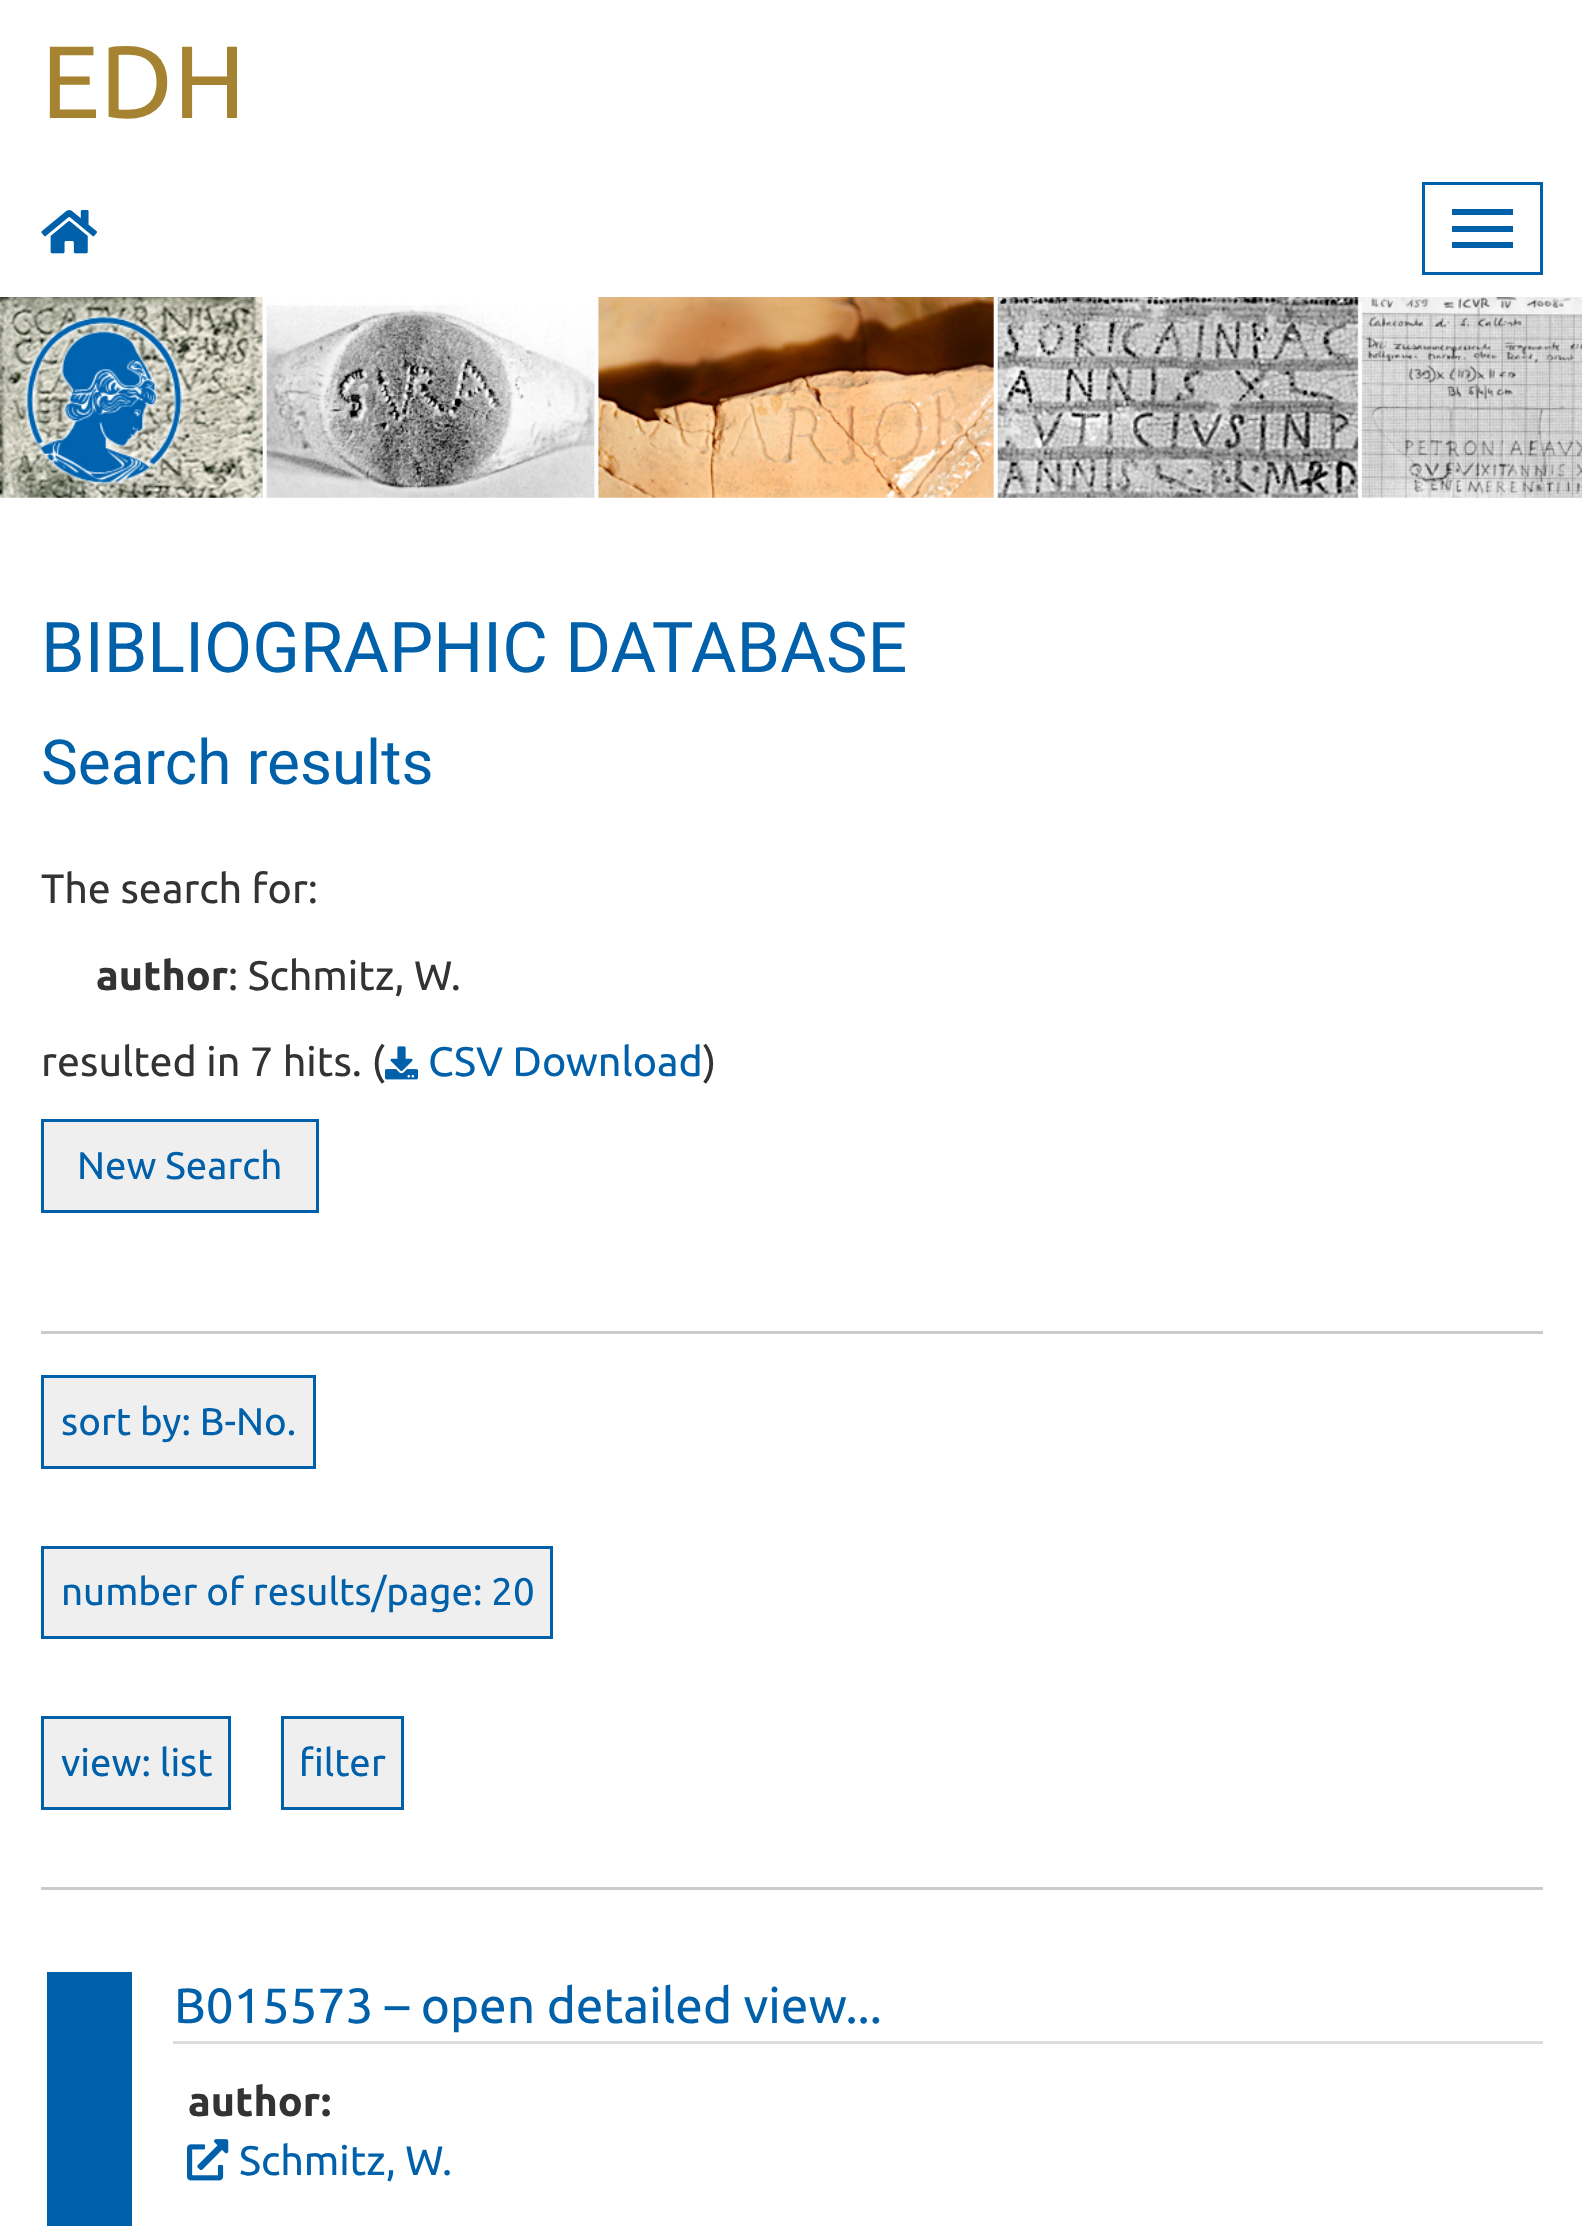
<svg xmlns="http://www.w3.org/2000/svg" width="1582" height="2226">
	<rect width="100%" height="100%" fill="#FFFFFF" />
	<text x="41" y="118" font-family="Ubuntu" font-size="103" fill="#A68331">EDH</text>
	<image x="41" y="210" width="56" height="44" href="assets/img1.png" />
	<rect x="1423.5" y="183.5" width="118" height="90" fill="none" stroke="#0060AA" stroke-width="3" />
	<rect x="1452" y="209" width="61" height="6" fill="#0060AA" />
	<rect x="1452" y="226" width="61" height="6" fill="#0060AA" />
	<rect x="1452" y="242" width="61" height="6" fill="#0060AA" />
	<image x="0" y="297" width="1582" height="201" href="assets/img2.png" />
	<text x="41" y="672" font-family="Roboto" font-size="70.1" fill="#0060AA">BIBLIOGRAPHIC DATABASE</text>
	<text x="41" y="784" font-family="Roboto" font-size="62" fill="#0060AA">Search results</text>
	<text x="41" y="903" font-family="Ubuntu" font-size="41.25" fill="#333333">The search for:</text>
	<text x="96" y="990" font-family="Ubuntu" font-size="41.25" font-weight="700" fill="#333333">author</text>
	<g font-family="Ubuntu" font-size="41.25" fill="#333333">
		<text x="228" y="990">: Schmitz, W.</text>
		<text x="41" y="1076">resulted in 7 hits. (</text>
	</g>
	<image x="385" y="1046" width="33" height="34" href="assets/img3.png" />
	<text x="428" y="1076" font-family="Ubuntu" font-size="41.25" fill="#0060AA">CSV Download</text>
	<text x="703" y="1076" font-family="Ubuntu" font-size="41.25" fill="#333333">)</text>
	<rect x="42.5" y="1120.5" width="275" height="91" fill="#EFEFEF" stroke="#0060AA" stroke-width="3" />
	<text x="77" y="1179" font-family="Ubuntu" font-size="38.5" fill="#0060AA">New Search</text>
	<rect x="41" y="1331" width="1502" height="3" fill="#CCCCCC" />
	<rect x="41" y="1887" width="1502" height="3" fill="#CCCCCC" />
	<rect x="42.5" y="1376.5" width="272" height="91" fill="#EFEFEF" stroke="#0060AA" stroke-width="3" />
	<text x="61" y="1435" font-family="Ubuntu" font-size="38.5" fill="#0060AA">sort by: B-No.</text>
	<rect x="42.5" y="1547.5" width="509" height="90" fill="#EFEFEF" stroke="#0060AA" stroke-width="3" />
	<text x="61" y="1605" font-family="Ubuntu" font-size="38.5" fill="#0060AA">number of results/page: 20</text>
	<rect x="42.5" y="1717.5" width="187" height="91" fill="#EFEFEF" stroke="#0060AA" stroke-width="3" />
	<text x="61" y="1776" font-family="Ubuntu" font-size="38.5" fill="#0060AA">view: list</text>
	<rect x="282.5" y="1717.5" width="120" height="91" fill="#EFEFEF" stroke="#0060AA" stroke-width="3" />
	<text x="299" y="1776" font-family="Ubuntu" font-size="38.5" fill="#0060AA">filter</text>
	<rect x="47" y="1972" width="85" height="254" fill="#0060AA" />
	<rect x="173" y="2041" width="1370" height="3" fill="#DDDDDD" />
	<text x="174" y="2023" font-family="Ubuntu" font-size="49.5" fill="#0060AA">B015573 – open detailed view...</text>
	<text x="188" y="2116" font-family="Ubuntu" font-size="41.25" font-weight="700" fill="#333333">author:</text>
	<image x="187" y="2139" width="42" height="42" href="assets/img4.png" />
	<text x="239" y="2175" font-family="Ubuntu" font-size="41.25" fill="#0060AA">Schmitz, W.</text>
</svg>
